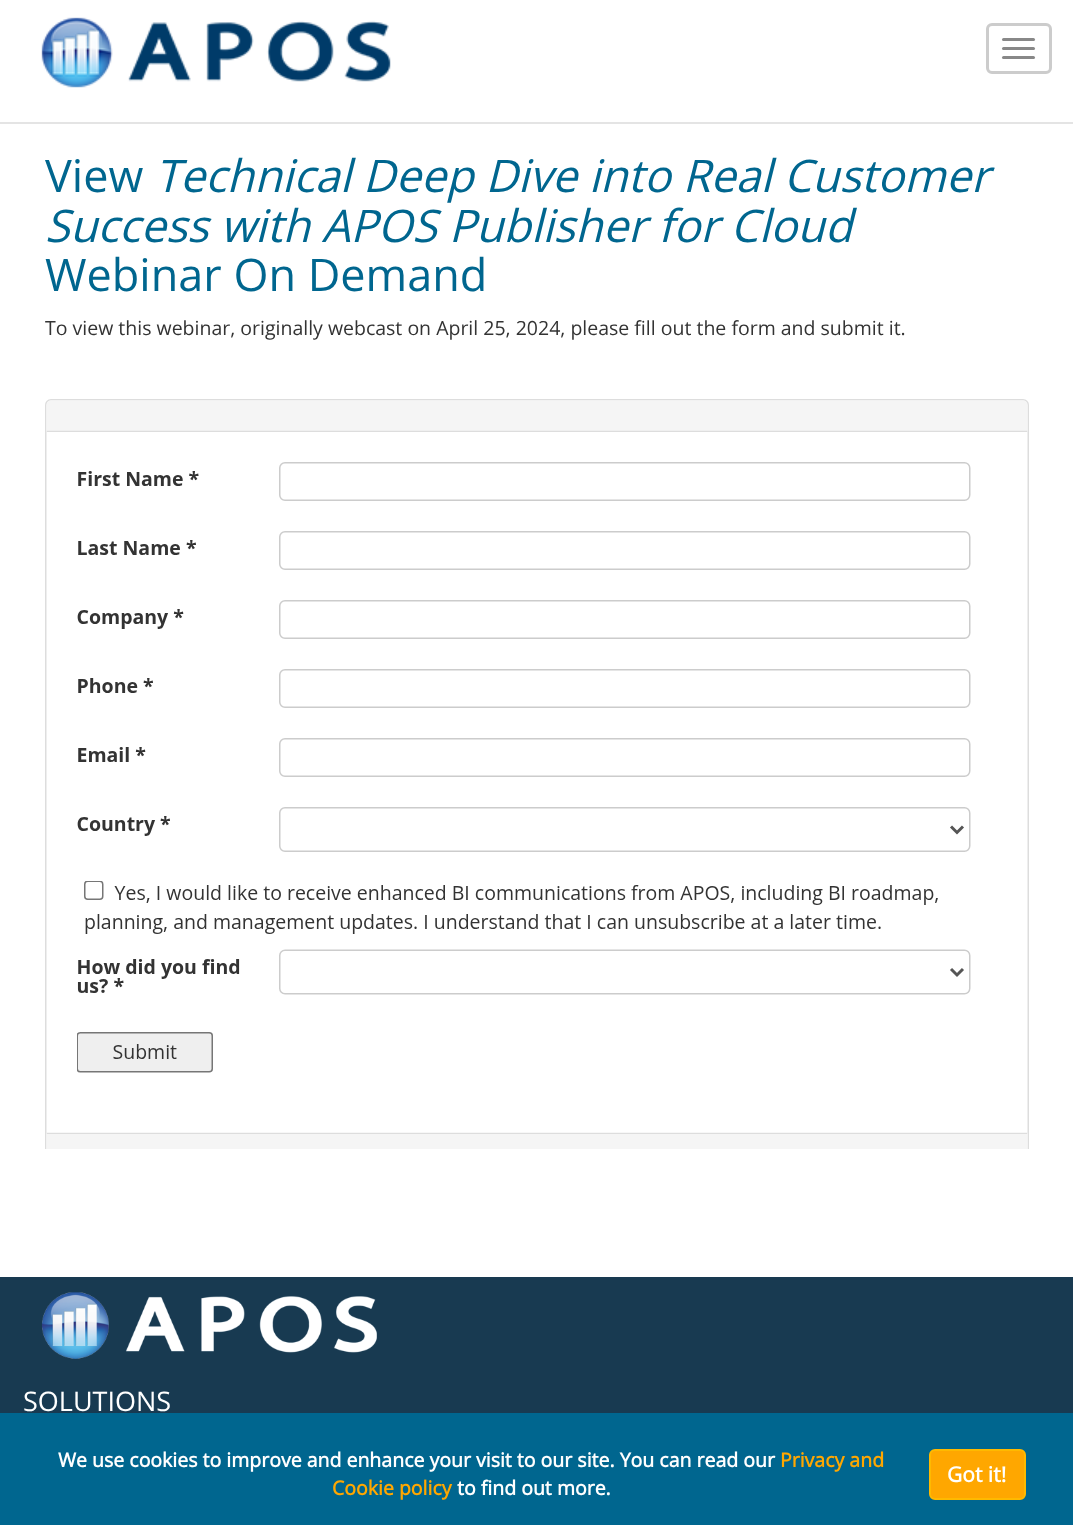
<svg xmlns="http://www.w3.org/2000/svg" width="1073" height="1525">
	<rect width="100%" height="100%" fill="#FFFFFF" />
	<rect x="0" y="122" width="1073" height="2" fill="#E4E4E4" />
	<image x="41" y="17" width="350" height="71" href="assets/img1.png" />
	<rect x="987.5" y="24.5" width="63" height="48" rx="4.5" fill="none" stroke="#CCCCCC" stroke-width="3" />
	<rect x="1002" y="38" width="33" height="3" rx="1.5" fill="#888888" />
	<rect x="1002" y="47" width="33" height="3" rx="1.5" fill="#888888" />
	<rect x="1002" y="56" width="33" height="3" rx="1.5" fill="#888888" />
	<text x="45" y="192" font-family="Open Sans" font-size="45" fill="#00668F">View</text>
	<g font-family="Open Sans" font-size="45" font-style="italic" fill="#00668F">
		<text x="155" y="192">Technical Deep Dive into Real Customer</text>
		<text x="45" y="242">Success with APOS Publisher for Cloud</text>
	</g>
	<text x="45" y="291" font-family="Open Sans" font-size="45" fill="#00668F">Webinar On Demand</text>
	<text x="45" y="335" font-family="Open Sans" font-size="19.5" fill="#333333">To view this webinar, originally webcast on April 25, 2024, please fill out the form and submit it.</text>
	<image x="45" y="399" width="984" height="750" href="assets/img2.png" />
	<rect x="0" y="1277" width="1073" height="136" fill="#183A51" />
	<image x="42" y="1292" width="335" height="67" href="assets/img3.png" />
	<text x="23" y="1411" font-family="Open Sans" font-size="27" fill="#FFFFFF">SOLUTIONS</text>
	<rect x="0" y="1413" width="1073" height="112" fill="#00668F" />
	<text x="58" y="1467" font-family="Open Sans" font-size="19.5" font-weight="700" fill="#FFFFFF">We use cookies to improve and enhance your visit to our site. You can read our</text>
	<g font-family="Open Sans" font-size="19.5" font-weight="700" fill="#FFA700">
		<text x="780" y="1467">Privacy and</text>
		<text x="332" y="1495">Cookie policy</text>
	</g>
	<text x="457" y="1495" font-family="Open Sans" font-size="19.5" font-weight="700" fill="#FFFFFF">to find out more.</text>
	<rect x="930" y="1450" width="95" height="49" rx="5" fill="#FFA700" stroke="#FFB900" stroke-width="2" />
	<text x="947" y="1482" font-family="Open Sans" font-size="21" font-weight="700" fill="#FFFFFF">Got it!</text>
</svg>
